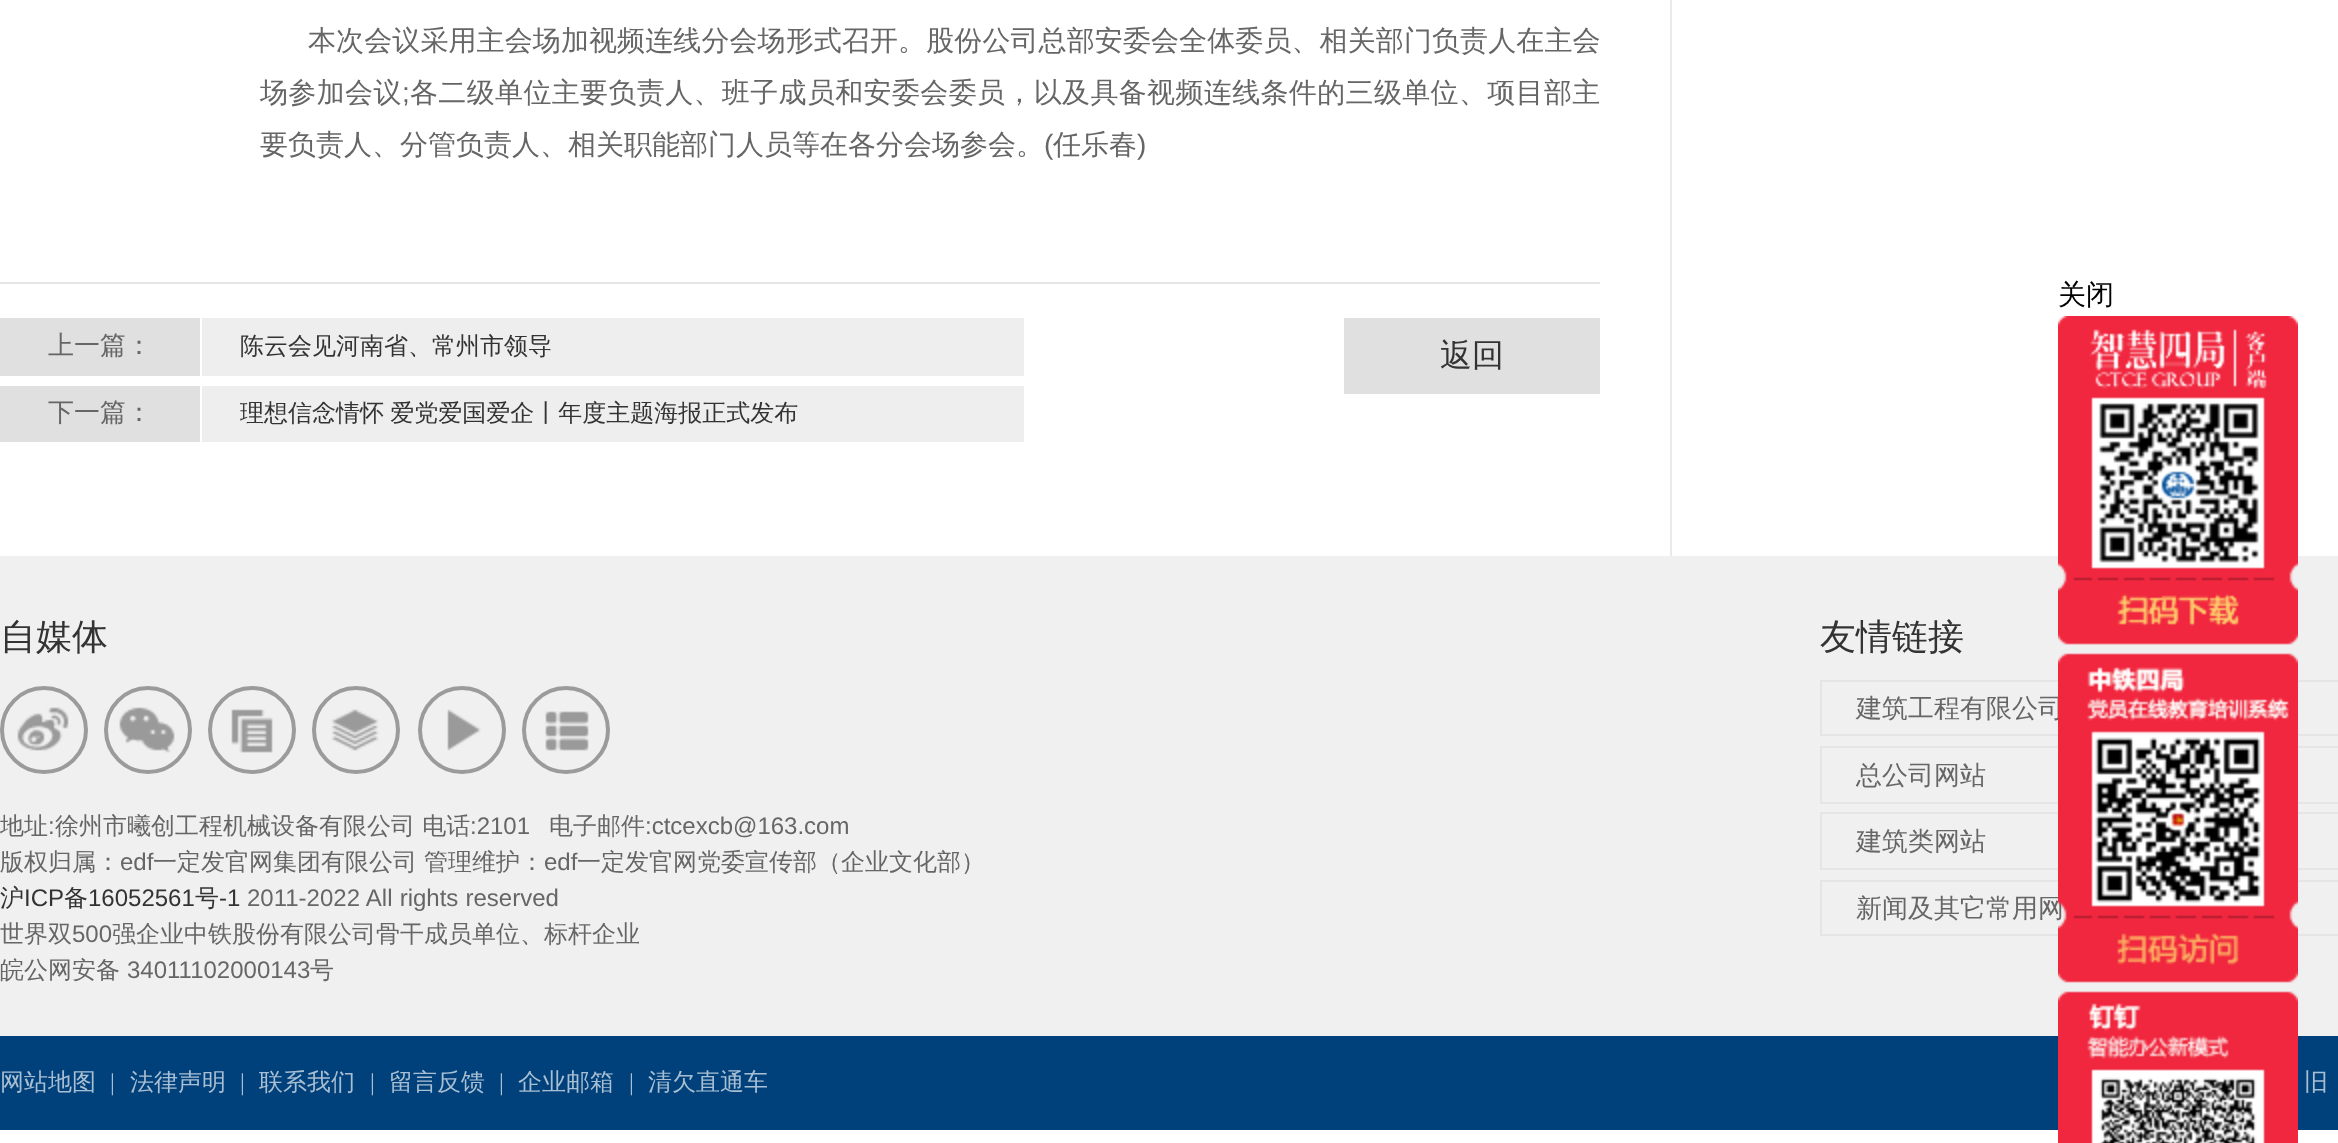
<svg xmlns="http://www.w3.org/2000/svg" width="2338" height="1143">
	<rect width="100%" height="100%" fill="#FFFFFF" />
	<rect x="1670" y="0" width="2" height="556" fill="#EAEAEA" />
	<rect x="0" y="282" width="1600" height="2" fill="#E5E5E5" />
	<text x="308" y="50" font-family="WenQuanYi Zen Hei" font-size="28" font-weight="500" letter-spacing="0.1" fill="#666666">本次会议采用主会场加视频连线分会场形式召开。股份公司总部安委会全体委员、相关部门负责人在主会</text>
	<text x="260" y="102" font-family="WenQuanYi Zen Hei" font-size="28" font-weight="500" letter-spacing="0.35" fill="#666666">场参加会议</text>
	<text x="402" y="102" font-family="Liberation Sans" font-size="28" letter-spacing="0.35" fill="#666666">;</text>
	<text x="410" y="102" font-family="WenQuanYi Zen Hei" font-size="28" font-weight="500" letter-spacing="0.35" fill="#666666">各二级单位主要负责人、班子成员和安委会委员，以及具备视频连线条件的三级单位、项目部主</text>
	<text x="260" y="154" font-family="WenQuanYi Zen Hei" font-size="28" font-weight="500" fill="#666666">要负责人、分管负责人、相关职能部门人员等在各分会场参会。</text>
	<text x="1044" y="154" font-family="Liberation Sans" font-size="28" fill="#666666">(</text>
	<text x="1053" y="154" font-family="WenQuanYi Zen Hei" font-size="28" font-weight="500" fill="#666666">任乐春</text>
	<text x="1137" y="154" font-family="Liberation Sans" font-size="28" fill="#666666">)</text>
	<rect x="202" y="318" width="822" height="58" fill="#EEEEEE" />
	<rect x="0" y="318" width="200" height="58" fill="#E0E0E0" />
	<text x="48" y="354" font-family="WenQuanYi Zen Hei" font-size="26" font-weight="500" fill="#666666">上一篇：</text>
	<text x="240" y="354" font-family="WenQuanYi Zen Hei" font-size="24" font-weight="500" fill="#333333">陈云会见河南省、常州市领导</text>
	<rect x="202" y="386" width="822" height="56" fill="#EEEEEE" />
	<rect x="0" y="386" width="200" height="56" fill="#E0E0E0" />
	<text x="48" y="421" font-family="WenQuanYi Zen Hei" font-size="26" font-weight="500" fill="#666666">下一篇：</text>
	<text x="240" y="421" word-spacing="-1" font-family="WenQuanYi Zen Hei" font-size="24" font-weight="500" fill="#333333">理想信念情怀 爱党爱国爱企丨年度主题海报正式发布</text>
	<rect x="1344" y="318" width="256" height="76" fill="#E0E0E0" />
	<text x="1440" y="366" font-family="WenQuanYi Zen Hei" font-size="32" font-weight="500" fill="#333333">返回</text>
	<text x="2058" y="304" font-family="WenQuanYi Zen Hei" font-size="28" font-weight="500" fill="#000000">关闭</text>
	<rect x="0" y="556" width="2338" height="480" fill="#F0F0F0" />
	<rect x="1821" y="681" width="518" height="54" fill="none" stroke="#E5E5E5" stroke-width="2" />
	<text x="1856" y="717" font-family="WenQuanYi Zen Hei" font-size="26" font-weight="500" fill="#666666">建筑工程有限公司</text>
	<rect x="1821" y="747" width="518" height="56" fill="none" stroke="#E5E5E5" stroke-width="2" />
	<rect x="1821" y="813" width="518" height="56" fill="none" stroke="#E5E5E5" stroke-width="2" />
	<rect x="1821" y="881" width="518" height="54" fill="none" stroke="#E5E5E5" stroke-width="2" />
	<text x="1856" y="917" font-family="WenQuanYi Zen Hei" font-size="26" font-weight="500" fill="#666666">新闻及其它常用网</text>
	<rect x="0" y="1036" width="2338" height="94" fill="#00417B" />
	<image x="2058" y="316" width="240" height="827" href="assets/img1.png" />
	<text x="0" y="649" font-family="WenQuanYi Zen Hei" font-size="36" font-weight="500" fill="#333333">自媒体</text>
	<circle cx="44" cy="730" r="42" fill="none" stroke="#9B9B9B" stroke-width="4" />
	<image x="17" y="707" width="52" height="44" href="assets/img2.png" />
	<circle cx="148" cy="730" r="42" fill="none" stroke="#9B9B9B" stroke-width="4" />
	<image x="119" y="707" width="56" height="46" href="assets/img3.png" />
	<circle cx="252" cy="730" r="42" fill="none" stroke="#9B9B9B" stroke-width="4" />
	<image x="231" y="709" width="42" height="44" href="assets/img4.png" />
	<circle cx="356" cy="730" r="42" fill="none" stroke="#9B9B9B" stroke-width="4" />
	<image x="331" y="709" width="48" height="42" href="assets/img5.png" />
	<circle cx="462" cy="730" r="42" fill="none" stroke="#9B9B9B" stroke-width="4" />
	<image x="447" y="709" width="34" height="42" href="assets/img6.png" />
	<circle cx="566" cy="730" r="42" fill="none" stroke="#9B9B9B" stroke-width="4" />
	<image x="545" y="711" width="44" height="40" href="assets/img7.png" />
	<text x="0" y="834" font-family="WenQuanYi Zen Hei" font-size="24" font-weight="500" fill="#666666">地址</text>
	<text x="48" y="834" font-family="Liberation Sans" font-size="24" fill="#666666">:</text>
	<text x="55" y="834" font-family="WenQuanYi Zen Hei" font-size="24" font-weight="500" fill="#666666">徐州市曦创工程机械设备有限公司 电话</text>
	<text x="470" y="834" font-family="Liberation Sans" font-size="24" fill="#666666">:2101</text>
	<text x="549" y="834" font-family="WenQuanYi Zen Hei" font-size="24" font-weight="500" fill="#666666">电子邮件</text>
	<text x="645" y="834" font-family="Liberation Sans" font-size="24" fill="#666666">:ctcexcb@163.com</text>
	<text x="0" y="870" font-family="WenQuanYi Zen Hei" font-size="24" font-weight="500" fill="#666666">版权归属：</text>
	<text x="120" y="870" font-family="Liberation Sans" font-size="24" fill="#666666">edf</text>
	<g font-family="WenQuanYi Zen Hei" font-size="24" font-weight="500" fill="#666666">
		<text x="153" y="870">一定发官网集团有限公司</text>
		<text x="424" y="870">管理维护：</text>
	</g>
	<text x="544" y="870" font-family="Liberation Sans" font-size="24" fill="#666666">edf</text>
	<text x="577" y="870" font-family="WenQuanYi Zen Hei" font-size="24" font-weight="500" fill="#666666">一定发官网党委宣传部（企业文化部）</text>
	<text x="0" y="906" font-family="WenQuanYi Zen Hei" font-size="24" font-weight="500" fill="#333333">沪</text>
	<text x="24" y="906" font-family="Liberation Sans" font-size="24" fill="#333333">ICP</text>
	<text x="64" y="906" font-family="WenQuanYi Zen Hei" font-size="24" font-weight="500" fill="#333333">备</text>
	<text x="88" y="906" font-family="Liberation Sans" font-size="24" fill="#333333">16052561</text>
	<text x="195" y="906" font-family="WenQuanYi Zen Hei" font-size="24" font-weight="500" fill="#333333">号</text>
	<text x="219" y="906" font-family="Liberation Sans" font-size="24" fill="#333333">-1</text>
	<text x="247" y="906" word-spacing="0.5" font-family="Liberation Sans" font-size="24" fill="#666666">2011-2022 All rights reserved</text>
	<text x="0" y="942" font-family="WenQuanYi Zen Hei" font-size="24" font-weight="500" fill="#666666">世界双</text>
	<text x="72" y="942" font-family="Liberation Sans" font-size="24" fill="#666666">500</text>
	<g font-family="WenQuanYi Zen Hei" font-size="24" font-weight="500" fill="#666666">
		<text x="112" y="942">强企业中铁股份有限公司骨干成员单位、标杆企业</text>
		<text x="0" y="978">皖公网安备</text>
	</g>
	<text x="127" y="978" font-family="Liberation Sans" font-size="24" fill="#666666">34011102000143</text>
	<text x="310" y="978" font-family="WenQuanYi Zen Hei" font-size="24" font-weight="500" fill="#666666">号</text>
	<text x="1820" y="649" font-family="WenQuanYi Zen Hei" font-size="36" font-weight="500" fill="#333333">友情链接</text>
	<g font-family="WenQuanYi Zen Hei" font-size="26" font-weight="500" fill="#666666">
		<text x="1856" y="784">总公司网站</text>
		<text x="1856" y="850">建筑类网站</text>
	</g>
	<text x="0" y="1090" font-family="WenQuanYi Zen Hei" font-size="24" font-weight="500" fill="#A8BED2">网站地图</text>
	<text x="110" y="1090" font-family="Liberation Serif" font-size="24" fill="#A8BED2">|</text>
	<text x="130" y="1090" font-family="WenQuanYi Zen Hei" font-size="24" font-weight="500" fill="#A8BED2">法律声明</text>
	<text x="240" y="1090" font-family="Liberation Serif" font-size="24" fill="#A8BED2">|</text>
	<text x="259" y="1090" font-family="WenQuanYi Zen Hei" font-size="24" font-weight="500" fill="#A8BED2">联系我们</text>
	<text x="370" y="1090" font-family="Liberation Serif" font-size="24" fill="#A8BED2">|</text>
	<text x="389" y="1090" font-family="WenQuanYi Zen Hei" font-size="24" font-weight="500" fill="#A8BED2">留言反馈</text>
	<text x="499" y="1090" font-family="Liberation Serif" font-size="24" fill="#A8BED2">|</text>
	<text x="518" y="1090" font-family="WenQuanYi Zen Hei" font-size="24" font-weight="500" fill="#A8BED2">企业邮箱</text>
	<text x="629" y="1090" font-family="Liberation Serif" font-size="24" fill="#A8BED2">|</text>
	<g font-family="WenQuanYi Zen Hei" font-size="24" font-weight="500" fill="#A8BED2">
		<text x="648" y="1090">清欠直通车</text>
		<text x="2304" y="1090">旧</text>
	</g>
</svg>
